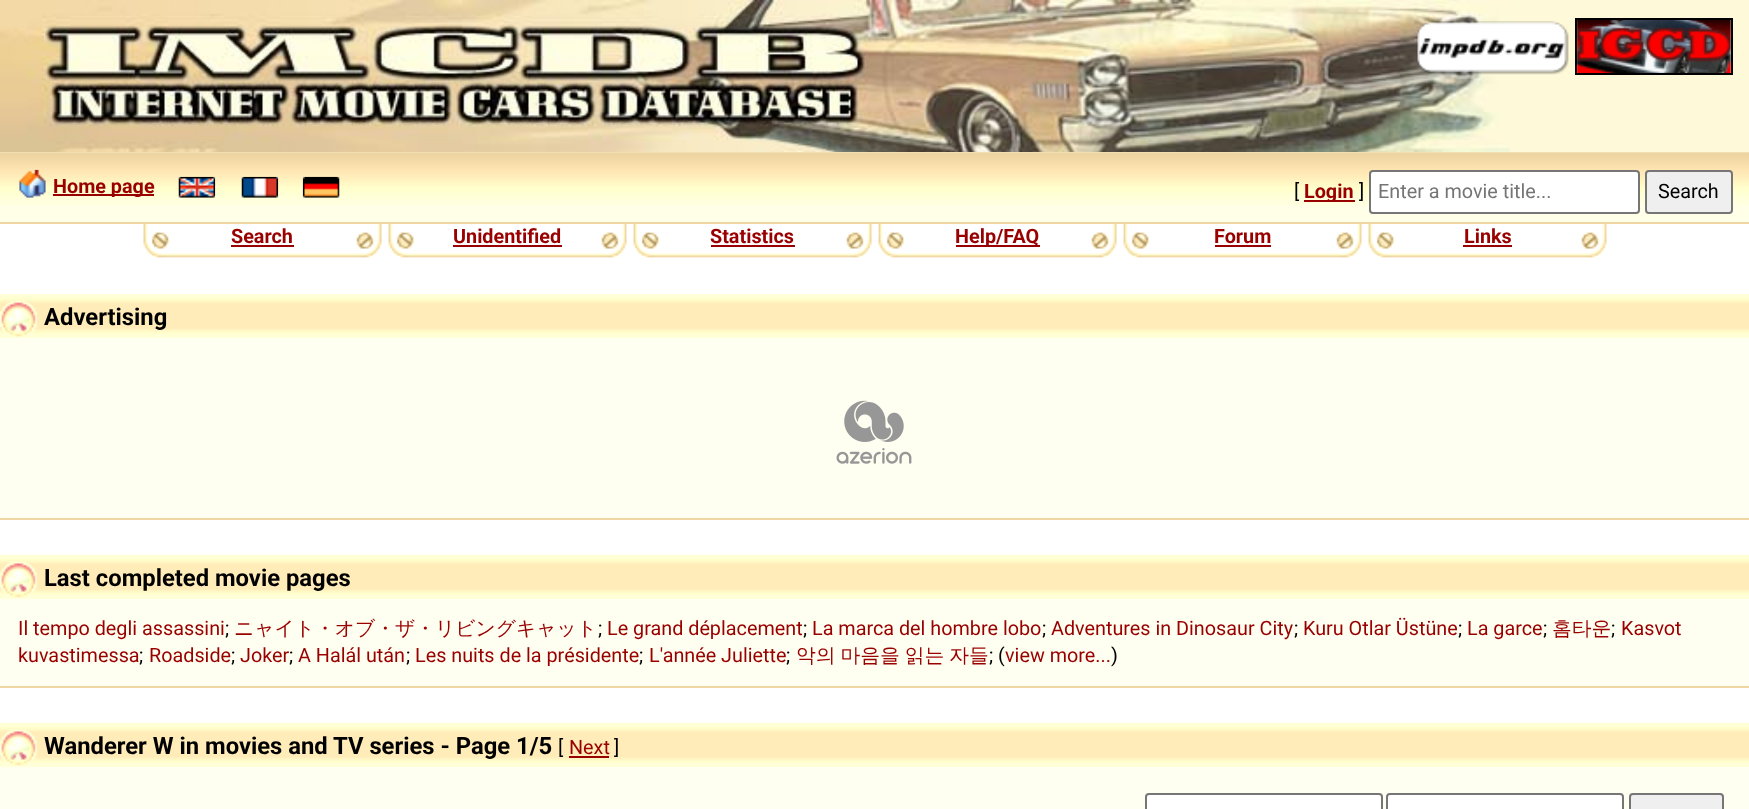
<svg xmlns="http://www.w3.org/2000/svg" width="1749" height="809">
	<rect width="100%" height="100%" fill="#FFFFFF" />
	<rect x="1510" y="0" width="239" height="152" fill="#FEF9D9" />
	<image x="0" y="0" width="1510" height="152" href="assets/img1.png" />
	<image x="1577" y="20" width="154" height="53" href="assets/img3.png" />
	<rect x="1576" y="19" width="156" height="55" fill="none" stroke="#000000" stroke-width="2" />
	<image x="1416" y="21" width="153" height="54" href="assets/img2.png" />
	<rect x="0" y="152" width="1749" height="70" fill="#FFFFE7" />
	<image x="0" y="152" width="1749" height="54" href="assets/img4.png" />
	<rect x="0" y="222" width="1749" height="2" fill="#EFD6A3" />
	<image x="19" y="169" width="27" height="29" href="assets/img5.png" />
	<rect x="53" y="194" width="101" height="2" fill="#990000" />
	<text x="53" y="193" font-family="Roboto" font-size="19.8" font-weight="700" fill="#990000">Home page</text>
	<image x="178" y="176" width="38" height="22" href="assets/img6.png" />
	<image x="241" y="176" width="38" height="22" href="assets/img7.png" />
	<image x="302" y="176" width="38" height="22" href="assets/img8.png" />
	<text x="1294" y="198" font-family="Roboto" font-size="19.8" fill="#000000">[</text>
	<rect x="1304" y="200" width="51" height="2" fill="#990000" />
	<text x="1304" y="198" font-family="Roboto" font-size="19.8" font-weight="700" fill="#990000">Login</text>
	<text x="1359" y="198" font-family="Roboto" font-size="19.8" fill="#000000">]</text>
	<rect x="1370" y="171" width="269" height="42" rx="3" fill="#FFFFFF" stroke="#767676" stroke-width="2" />
	<text x="1378" y="198" font-family="Roboto" font-size="19.8" fill="#757575">Enter a movie title...</text>
	<rect x="1646" y="171" width="86" height="42" rx="3" fill="#EFEFEF" stroke="#767676" stroke-width="2" />
	<text x="1658" y="198" font-family="Roboto" font-size="19.8" fill="#000000">Search</text>
	<image x="143" y="224" width="239" height="34" href="assets/img9.png" />
	<text x="231" y="243" font-family="Roboto" font-size="19.8" font-weight="700" fill="#990000">Search</text>
	<rect x="231" y="245" width="63" height="2" fill="#990000" />
	<image x="388" y="224" width="239" height="34" href="assets/img10.png" />
	<text x="453" y="243" font-family="Roboto" font-size="19.8" font-weight="700" fill="#990000">Unidentified</text>
	<rect x="453" y="245" width="109" height="2" fill="#990000" />
	<image x="633" y="224" width="239" height="34" href="assets/img10.png" />
	<text x="710" y="243" font-family="Roboto" font-size="19.8" font-weight="700" fill="#990000">Statistics</text>
	<rect x="711" y="245" width="84" height="2" fill="#990000" />
	<image x="878" y="224" width="239" height="34" href="assets/img10.png" />
	<rect x="956" y="245" width="84" height="2" fill="#990000" />
	<text x="955" y="243" font-family="Roboto" font-size="19.8" font-weight="700" fill="#990000">Help/FAQ</text>
	<image x="1123" y="224" width="239" height="34" href="assets/img10.png" />
	<text x="1214" y="243" font-family="Roboto" font-size="19.8" font-weight="700" fill="#990000">Forum</text>
	<rect x="1215" y="245" width="56" height="2" fill="#990000" />
	<image x="1368" y="224" width="239" height="34" href="assets/img10.png" />
	<text x="1464" y="243" font-family="Roboto" font-size="19.8" font-weight="700" fill="#990000">Links</text>
	<rect x="1463" y="245" width="49" height="2" fill="#990000" />
	<rect x="0" y="338" width="1749" height="180" fill="#FFFFF1" />
	<rect x="0" y="518" width="1749" height="2" fill="#EFD6A3" />
	<rect x="0" y="294" width="1749" height="44" fill="#FFFFD7" />
	<image x="0" y="297" width="1749" height="38" href="assets/img11.png" />
	<image x="0" y="300" width="38" height="37" href="assets/img12.png" />
	<text x="44" y="325" font-family="Roboto" font-size="23.8" font-weight="700" fill="#000000">Advertising</text>
	<image x="836" y="400" width="76" height="64" href="assets/img13.png" />
	<rect x="0" y="599" width="1749" height="87" fill="#FFFFF1" />
	<rect x="0" y="686" width="1749" height="2" fill="#EFD6A3" />
	<rect x="0" y="595" width="1749" height="4" fill="#FFFFD7" />
	<image x="0" y="554" width="1749" height="41" href="assets/img14.png" />
	<image x="0" y="561" width="38" height="37" href="assets/img15.png" />
	<text x="44" y="586" font-family="Roboto" font-size="23.8" font-weight="700" fill="#000000">Last completed movie pages</text>
	<text x="18" y="635" font-family="Roboto" font-size="19.8" fill="#990000">Il tempo degli assassini</text>
	<text x="225" y="635" font-family="Roboto" font-size="19.8" fill="#000000">;</text>
	<text x="234" y="635" font-family="WenQuanYi Zen Hei" font-size="19.8" font-weight="500" fill="#990000">ニャイト・オブ・ザ・リビングキャット</text>
	<text x="598" y="635" font-family="Roboto" font-size="19.8" fill="#000000">;</text>
	<text x="607" y="635" font-family="Roboto" font-size="19.8" fill="#990000">Le grand déplacement</text>
	<text x="803" y="635" font-family="Roboto" font-size="19.8" fill="#000000">;</text>
	<text x="812" y="635" font-family="Roboto" font-size="19.8" fill="#990000">La marca del hombre lobo</text>
	<text x="1042" y="635" font-family="Roboto" font-size="19.8" fill="#000000">;</text>
	<text x="1051" y="635" font-family="Roboto" font-size="19.8" fill="#990000">Adventures in Dinosaur City</text>
	<text x="1294" y="635" font-family="Roboto" font-size="19.8" fill="#000000">;</text>
	<text x="1303" y="635" font-family="Roboto" font-size="19.8" fill="#990000">Kuru Otlar Üstüne</text>
	<text x="1458" y="635" font-family="Roboto" font-size="19.8" fill="#000000">;</text>
	<text x="1467" y="635" font-family="Roboto" font-size="19.8" fill="#990000">La garce</text>
	<text x="1543" y="635" font-family="Roboto" font-size="19.8" fill="#000000">;</text>
	<text x="1552" y="635" font-family="WenQuanYi Zen Hei" font-size="19.8" font-weight="500" fill="#990000">홈타운</text>
	<text x="1611" y="635" font-family="Roboto" font-size="19.8" fill="#000000">;</text>
	<g font-family="Roboto" font-size="19.8" fill="#990000">
		<text x="1621" y="635">Kasvot</text>
		<text x="18" y="662">kuvastimessa</text>
	</g>
	<text x="139" y="662" font-family="Roboto" font-size="19.8" fill="#000000">;</text>
	<text x="149" y="662" font-family="Roboto" font-size="19.8" fill="#990000">Roadside</text>
	<text x="231" y="662" font-family="Roboto" font-size="19.8" fill="#000000">;</text>
	<text x="240" y="662" font-family="Roboto" font-size="19.8" fill="#990000">Joker</text>
	<text x="289" y="662" font-family="Roboto" font-size="19.8" fill="#000000">;</text>
	<text x="298" y="662" font-family="Roboto" font-size="19.8" fill="#990000">A Halál után</text>
	<text x="406" y="662" font-family="Roboto" font-size="19.8" fill="#000000">;</text>
	<text x="415" y="662" font-family="Roboto" font-size="19.8" fill="#990000">Les nuits de la présidente</text>
	<text x="639" y="662" font-family="Roboto" font-size="19.8" fill="#000000">;</text>
	<text x="649" y="662" font-family="Roboto" font-size="19.8" fill="#990000">L'année Juliette</text>
	<text x="786" y="662" font-family="Roboto" font-size="19.8" fill="#000000">;</text>
	<text x="796" y="662" word-spacing="-1" font-family="WenQuanYi Zen Hei" font-size="19.8" font-weight="500" fill="#990000">악의 마음을 읽는 자들</text>
	<text x="989" y="662" font-family="Roboto" font-size="19.8" fill="#000000">; (</text>
	<text x="1005" y="662" font-family="Roboto" font-size="19.8" fill="#990000">view more...</text>
	<text x="1111" y="662" font-family="Roboto" font-size="19.8" fill="#000000">)</text>
	<rect x="0" y="767" width="1749" height="42" fill="#FFFFF1" />
	<rect x="0" y="763" width="1749" height="4" fill="#FFFFD7" />
	<image x="0" y="722" width="1749" height="41" href="assets/img14.png" />
	<image x="0" y="729" width="38" height="37" href="assets/img15.png" />
	<text x="44" y="754" font-family="Roboto" font-size="23.8" font-weight="700" fill="#000000">Wanderer W in movies and TV series - Page 1/5</text>
	<text x="558" y="754" font-family="Roboto" font-size="19.8" fill="#000000">[</text>
	<text x="569" y="754" font-family="Roboto" font-size="19.8" fill="#990000">Next</text>
	<rect x="569" y="756" width="40" height="2" fill="#990000" />
	<text x="614" y="754" font-family="Roboto" font-size="19.8" fill="#000000">]</text>
	<rect x="1146" y="794" width="236" height="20" rx="3" fill="#FFFFFF" stroke="#767676" stroke-width="2" />
	<rect x="1387" y="794" width="236" height="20" rx="3" fill="#FFFFFF" stroke="#767676" stroke-width="2" />
	<rect x="1630" y="794" width="93" height="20" rx="3" fill="#EFEFEF" stroke="#767676" stroke-width="2" />
</svg>
